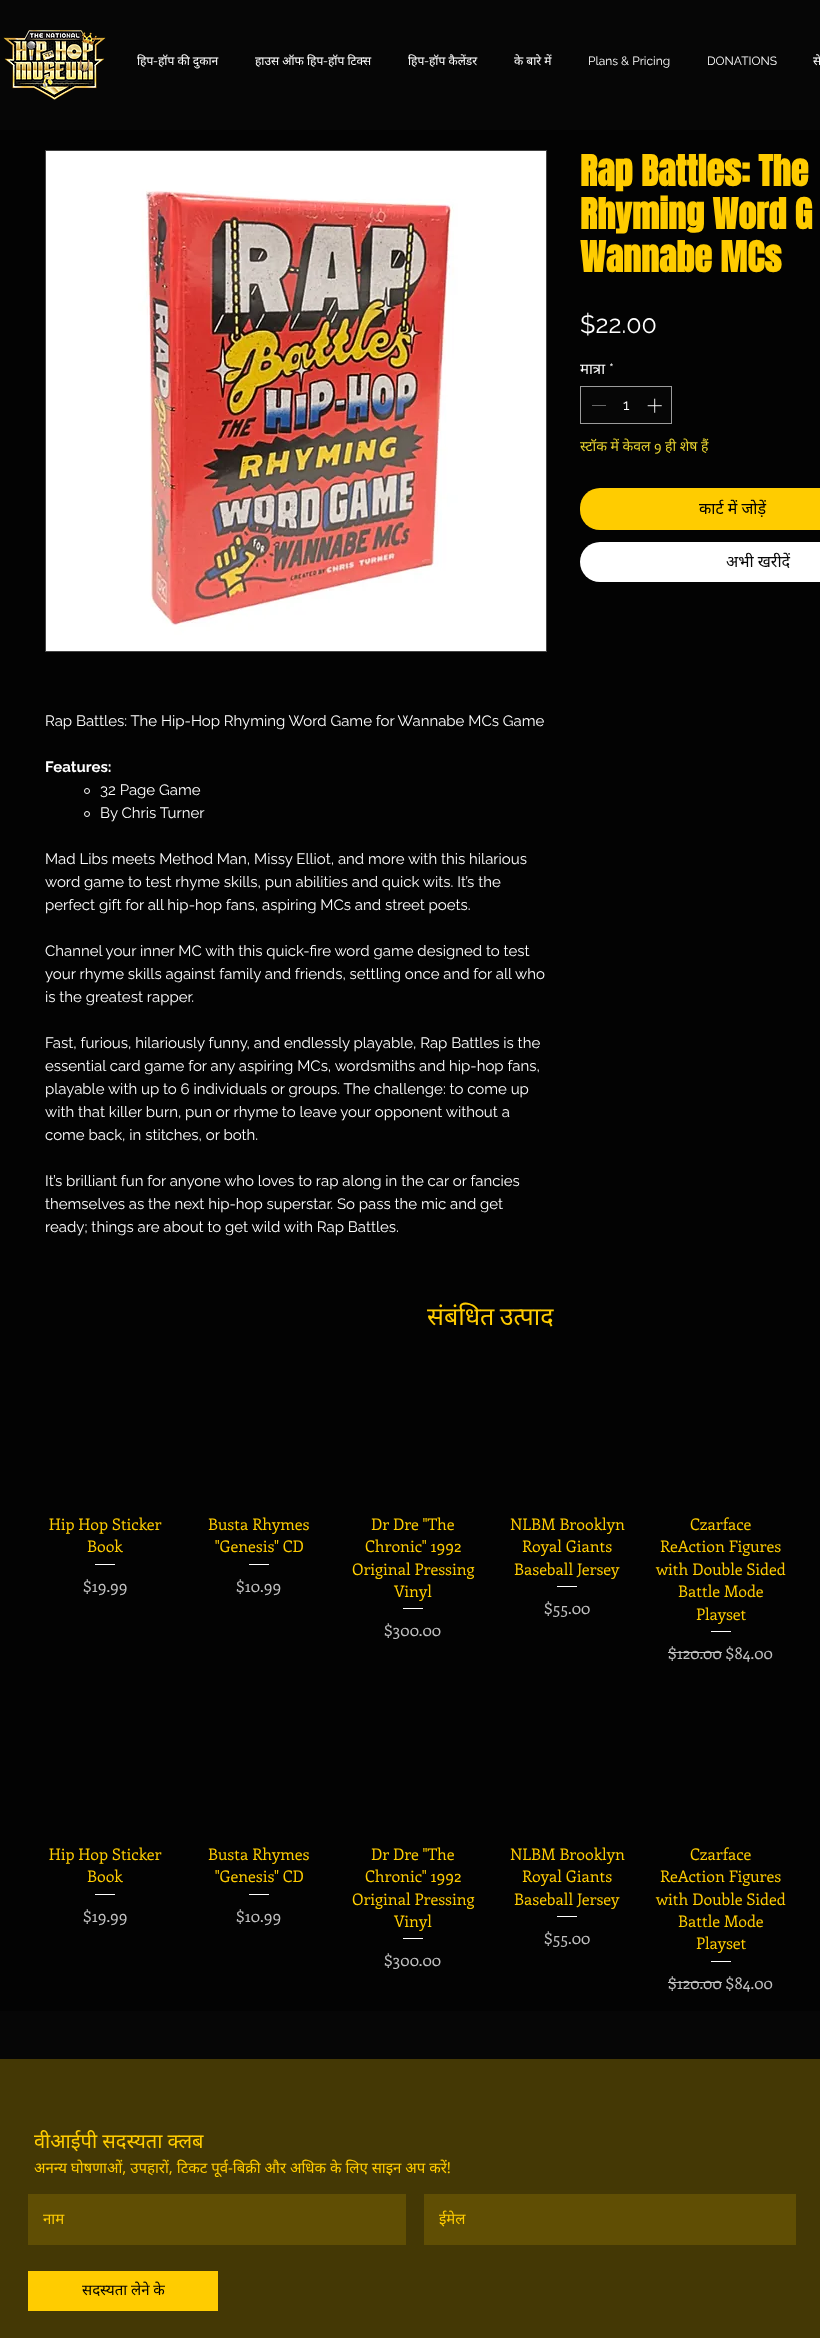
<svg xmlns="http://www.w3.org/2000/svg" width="820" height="2338">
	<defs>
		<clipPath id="clip1"><rect x="439" y="2208" width="354" height="20" /></clipPath>
	</defs>
	<rect width="100%" height="100%" fill="#060606" />
	<image x="3" y="30" width="103" height="70" href="assets/img1.png" />
	<text x="137" y="65" font-family="Noto Sans" font-size="12" fill="#FFFFFF">हिप</text>
	<text x="153" y="65" font-family="Raleway" font-size="12" fill="#FFFFFF">-</text>
	<g font-family="Noto Sans" font-size="12" fill="#FFFFFF">
		<text x="158" y="65">हॉप की दुकान</text>
		<text x="255" y="65">हाउस ऑफ हिप</text>
	</g>
	<text x="323" y="65" font-family="Raleway" font-size="12" fill="#FFFFFF">-</text>
	<g font-family="Noto Sans" font-size="12" fill="#FFFFFF">
		<text x="328" y="65">हॉप टिक्स</text>
		<text x="408" y="65">हिप</text>
	</g>
	<text x="424" y="65" font-family="Raleway" font-size="12" fill="#FFFFFF">-</text>
	<g font-family="Noto Sans" font-size="12" fill="#FFFFFF">
		<text x="429" y="65">हॉप कैलेंडर</text>
		<text x="514" y="65">के बारे में</text>
	</g>
	<g font-family="Raleway" font-size="12" fill="#FFFFFF">
		<text x="588" y="65">Plans &amp; Pricing</text>
		<text x="707" y="65">DONATIONS</text>
	</g>
	<text x="813" y="65" font-family="Noto Sans" font-size="12" fill="#FFFFFF">से</text>
	<rect x="0" y="130" width="820" height="1881" fill="#030303" />
	<g font-family="Anton" font-size="36" font-weight="700" fill="#FFCC00">
		<text x="580" y="186">Rap Battles: The</text>
		<text x="580" y="229">Rhyming Word G</text>
		<text x="580" y="272">Wannabe MCs</text>
	</g>
	<text x="580" y="333" font-family="Raleway" font-size="25" fill="#FFFFFF">$22.00</text>
	<text x="580" y="374" font-family="Noto Sans" font-size="15" fill="#FFFFFF">मात्रा</text>
	<text x="609" y="374" font-family="Raleway" font-size="15" fill="#FFFFFF">*</text>
	<rect x="580.5" y="386.5" width="91" height="37" fill="#060606" stroke="#9B9B9B" />
	<rect x="592" y="405" width="14" height="1" fill="#676767" />
	<text x="623" y="410" font-family="Raleway" font-size="15" fill="#FFFFFF">1</text>
	<image x="647" y="398" width="15" height="15" href="assets/img2.png" />
	<text x="580" y="451" font-family="Noto Sans" font-size="14" fill="#E5D02F">स्टॉक में केवल</text>
	<text x="654" y="451" font-family="Enriqueta" font-size="14" fill="#E5D02F">9</text>
	<text x="665" y="451" font-family="Noto Sans" font-size="14" fill="#E5D02F">ही शेष हैं</text>
	<rect x="580" y="488" width="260" height="42" rx="20" fill="#FFCC00" />
	<text x="699" y="514" font-family="Noto Sans" font-size="16" fill="#000000">कार्ट में जोड़ें</text>
	<rect x="580" y="542" width="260" height="40" rx="20" fill="#FFFFFF" />
	<text x="726" y="567" font-family="Noto Sans" font-size="16" fill="#060606">अभी खरीदें</text>
	<rect x="45.5" y="150.5" width="501" height="501" fill="none" stroke="#444444" />
	<image x="46" y="151" width="500" height="500" href="assets/img3.png" />
	<text x="45" y="726" font-family="Raleway" font-size="15" fill="#FFFFFF">Rap Battles: The Hip-Hop Rhyming Word Game for Wannabe MCs Game</text>
	<text x="45" y="772" font-family="Raleway" font-size="15" font-weight="700" fill="#FFFFFF">Features:</text>
	<circle cx="87" cy="791" r="2.5" fill="none" stroke="#FFFFFF" />
	<text x="100" y="795" font-family="Raleway" font-size="15" fill="#FFFFFF">32 Page Game</text>
	<circle cx="87" cy="814" r="2.5" fill="none" stroke="#FFFFFF" />
	<g font-family="Raleway" font-size="15" fill="#FFFFFF">
		<text x="100" y="818">By Chris Turner</text>
		<text x="45" y="864">Mad Libs meets Method Man, Missy Elliot, and more with this hilarious</text>
		<text x="45" y="887">word game to test rhyme skills, pun abilities and quick wits. It’s the</text>
		<text x="45" y="910">perfect gift for all hip-hop fans, aspiring MCs and street poets.</text>
		<text x="45" y="956">Channel your inner MC with this quick-fire word game designed to test</text>
		<text x="45" y="979">your rhyme skills against family and friends, settling once and for all who</text>
		<text x="45" y="1002">is the greatest rapper.</text>
		<text x="45" y="1048">Fast, furious, hilariously funny, and endlessly playable, Rap Battles is the</text>
		<text x="45" y="1071">essential card game for any aspiring MCs, wordsmiths and hip-hop fans,</text>
		<text x="45" y="1094">playable with up to 6 individuals or groups. The challenge: to come up</text>
		<text x="45" y="1117">with that killer burn, pun or rhyme to leave your opponent without a</text>
		<text x="45" y="1140">come back, in stitches, or both.</text>
		<text x="45" y="1186">It’s brilliant fun for anyone who loves to rap along in the car or fancies</text>
		<text x="45" y="1209">themselves as the next hip-hop superstar. So pass the mic and get</text>
		<text x="45" y="1232">ready; things are about to get wild with Rap Battles.</text>
	</g>
	<text x="427" y="1325" word-spacing="-1" font-family="Noto Sans" font-size="25" fill="#FFCC00">संबंधित उत्पाद</text>
	<g font-family="Enriqueta" font-size="16" fill="#FFCC00">
		<text x="49" y="1530">Hip Hop Sticker</text>
		<text x="87" y="1552">Book</text>
	</g>
	<rect x="95" y="1564" width="20" height="1" fill="#FFFFFF" />
	<text x="83" y="1592" font-family="Enriqueta" font-size="16" fill="#C1C1C1">$19.99</text>
	<g font-family="Enriqueta" font-size="16" fill="#FFCC00">
		<text x="208" y="1530">Busta Rhymes</text>
		<text x="215" y="1552">"Genesis" CD</text>
	</g>
	<rect x="249" y="1564" width="20" height="1" fill="#FFFFFF" />
	<text x="236" y="1592" font-family="Enriqueta" font-size="16" fill="#C1C1C1">$10.99</text>
	<g font-family="Enriqueta" font-size="16" fill="#FFCC00">
		<text x="371" y="1530">Dr Dre "The</text>
		<text x="365" y="1552">Chronic" 1992</text>
		<text x="352" y="1575">Original Pressing</text>
		<text x="394" y="1597">Vinyl</text>
	</g>
	<rect x="403" y="1608" width="20" height="1" fill="#FFFFFF" />
	<text x="384" y="1636" font-family="Enriqueta" font-size="16" fill="#C1C1C1">$300.00</text>
	<g font-family="Enriqueta" font-size="16" fill="#FFCC00">
		<text x="510" y="1530">NLBM Brooklyn</text>
		<text x="522" y="1552">Royal Giants</text>
		<text x="514" y="1575">Baseball Jersey</text>
	</g>
	<rect x="557" y="1586" width="20" height="1" fill="#FFFFFF" />
	<text x="544" y="1614" font-family="Enriqueta" font-size="16" fill="#C1C1C1">$55.00</text>
	<g font-family="Enriqueta" font-size="16" fill="#FFCC00">
		<text x="690" y="1530">Czarface</text>
		<text x="660" y="1552">ReAction Figures</text>
		<text x="656" y="1575">with Double Sided</text>
		<text x="678" y="1597">Battle Mode</text>
		<text x="696" y="1620">Playset</text>
	</g>
	<rect x="711" y="1631" width="20" height="1" fill="#FFFFFF" />
	<text x="668" y="1659" font-family="Enriqueta" font-size="16" fill="#C1C1C1">$120.00 $84.00</text>
	<rect x="668" y="1652" width="54" height="1" fill="#C1C1C1" />
	<g font-family="Enriqueta" font-size="16" fill="#FFCC00">
		<text x="49" y="1860">Hip Hop Sticker</text>
		<text x="87" y="1882">Book</text>
	</g>
	<rect x="95" y="1894" width="20" height="1" fill="#FFFFFF" />
	<text x="83" y="1922" font-family="Enriqueta" font-size="16" fill="#C1C1C1">$19.99</text>
	<g font-family="Enriqueta" font-size="16" fill="#FFCC00">
		<text x="208" y="1860">Busta Rhymes</text>
		<text x="215" y="1882">"Genesis" CD</text>
	</g>
	<rect x="249" y="1894" width="20" height="1" fill="#FFFFFF" />
	<text x="236" y="1922" font-family="Enriqueta" font-size="16" fill="#C1C1C1">$10.99</text>
	<g font-family="Enriqueta" font-size="16" fill="#FFCC00">
		<text x="371" y="1860">Dr Dre "The</text>
		<text x="365" y="1882">Chronic" 1992</text>
		<text x="352" y="1905">Original Pressing</text>
		<text x="394" y="1927">Vinyl</text>
	</g>
	<rect x="403" y="1938" width="20" height="1" fill="#FFFFFF" />
	<text x="384" y="1966" font-family="Enriqueta" font-size="16" fill="#C1C1C1">$300.00</text>
	<g font-family="Enriqueta" font-size="16" fill="#FFCC00">
		<text x="510" y="1860">NLBM Brooklyn</text>
		<text x="522" y="1882">Royal Giants</text>
		<text x="514" y="1905">Baseball Jersey</text>
	</g>
	<rect x="557" y="1916" width="20" height="1" fill="#FFFFFF" />
	<text x="544" y="1944" font-family="Enriqueta" font-size="16" fill="#C1C1C1">$55.00</text>
	<g font-family="Enriqueta" font-size="16" fill="#FFCC00">
		<text x="690" y="1860">Czarface</text>
		<text x="660" y="1882">ReAction Figures</text>
		<text x="656" y="1905">with Double Sided</text>
		<text x="678" y="1927">Battle Mode</text>
		<text x="696" y="1949">Playset</text>
	</g>
	<rect x="711" y="1961" width="20" height="1" fill="#FFFFFF" />
	<text x="668" y="1989" font-family="Enriqueta" font-size="16" fill="#C1C1C1">$120.00 $84.00</text>
	<rect x="668" y="1982" width="54" height="1" fill="#C1C1C1" />
	<rect x="0" y="2059" width="820" height="279" fill="#443805" />
	<text x="34" y="2148" font-family="Noto Sans" font-size="20" fill="#FFCC00">वीआईपी सदस्यता क्लब</text>
	<text x="34" y="2173" font-family="Noto Sans" font-size="15" fill="#FFCC00">अनन्य घोषणाओं, उपहारों, टिकट पूर्व-बिक्री और अधिक के लिए साइन अप करें!</text>
	<rect x="28" y="2194" width="378" height="51" fill="#604E04" />
	<text x="43" y="2224" font-family="Noto Sans" font-size="15" fill="#FFCC00">नाम</text>
	<rect x="424" y="2194" width="372" height="51" fill="#604E04" />
	<g clip-path="url(#clip1)">
		<text x="439" y="2224" font-family="Noto Sans" font-size="15" fill="#FFCC00">ईमेल</text>
	</g>
	<rect x="28" y="2271" width="190" height="40" fill="#FFCC00" />
	<text x="82" y="2295" font-family="Noto Sans" font-size="15" fill="#000000">सदस्यता लेने के</text>
</svg>
